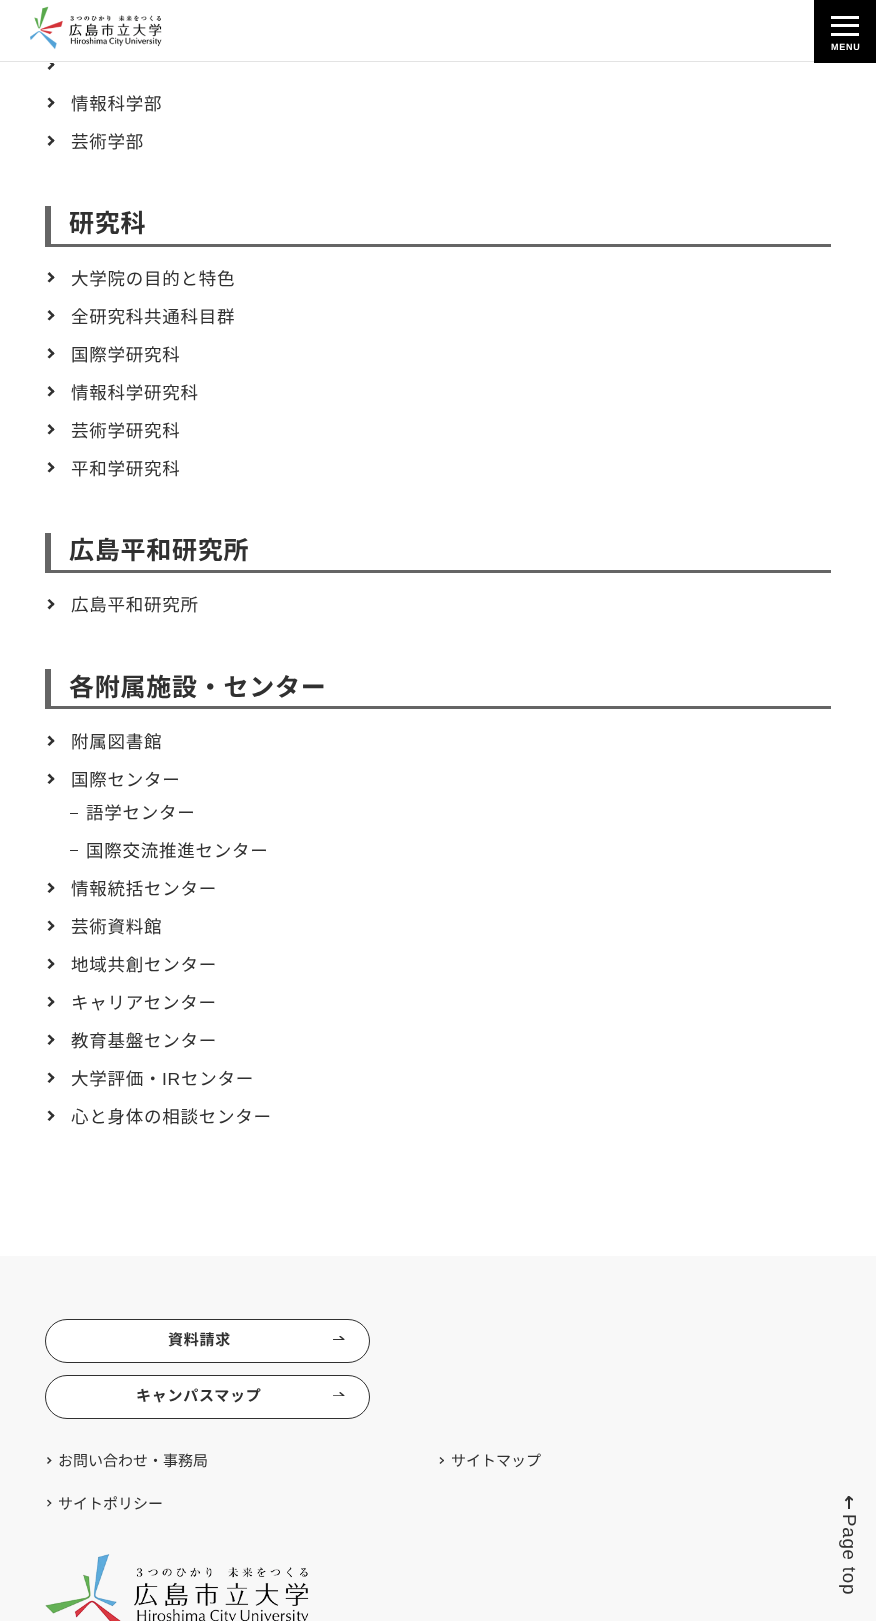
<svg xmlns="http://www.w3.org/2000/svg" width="876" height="1621">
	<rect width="100%" height="100%" fill="#FFFFFF" />
	<path d="M47.5 61L49.5 59.5L54.5 64.5L53 66.5Z" fill="#303030" />
	<rect x="47" y="59" width="6" height="4" fill="#FFFFFF" />
	<rect x="0" y="61" width="814" height="1" fill="#E3E3E3" />
	<image x="30" y="6" width="132" height="44" href="assets/img1.png" />
	<rect x="814" y="0" width="62" height="63" fill="#000000" />
	<rect x="831" y="16" width="28" height="3" fill="#FFFFFF" />
	<rect x="831" y="33" width="28" height="3" fill="#FFFFFF" />
	<rect x="831" y="24" width="28" height="3" fill="#FFFFFF" />
	<text x="831" y="50" font-family="Liberation Sans" font-size="9" font-weight="700" letter-spacing="0.75" fill="#FFFFFF">MENU</text>
	<path d="M47.5 68L53 63L54.5 64.5L49.5 70Z" fill="#303030" />
	<path d="M47.5 99L49.5 97.5L54.5 102.5L53 104.5Z" fill="#303030" />
	<path d="M47.5 106L53 101L54.5 102.5L49.5 108Z" fill="#303030" />
	<text x="71" y="110" font-family="Noto Sans JP" font-size="17.5" letter-spacing="0.75" fill="#303030">情報科学部</text>
	<path d="M47.5 137L49.5 135.5L54.5 140.5L53 142.5Z" fill="#303030" />
	<path d="M47.5 144L53 139L54.5 140.5L49.5 146Z" fill="#303030" />
	<text x="71" y="148" font-family="Noto Sans JP" font-size="17.5" letter-spacing="0.75" fill="#303030">芸術学部</text>
	<rect x="45" y="244" width="786" height="3" fill="#656565" />
	<rect x="45" y="206" width="6" height="40" fill="#656565" />
	<text x="69" y="232" font-family="Noto Sans JP" font-size="25" font-weight="700" letter-spacing="0.75" fill="#303030">研究科</text>
	<path d="M47.5 274L49.5 272L54.5 277.5L53 279Z" fill="#303030" />
	<path d="M47.5 281L53 275.5L54.5 277.5L49.5 282.5Z" fill="#303030" />
	<text x="71" y="285" font-family="Noto Sans JP" font-size="17.5" letter-spacing="0.75" fill="#303030">大学院の目的と特色</text>
	<path d="M47.5 312L49.5 310L54.5 315.5L53 317Z" fill="#303030" />
	<path d="M47.5 319L53 313.5L54.5 315.5L49.5 320.5Z" fill="#303030" />
	<text x="71" y="323" font-family="Noto Sans JP" font-size="17.5" letter-spacing="0.75" fill="#303030">全研究科共通科目群</text>
	<path d="M47.5 350L49.5 348L54.5 353.5L53 355Z" fill="#303030" />
	<path d="M47.5 357L53 351.5L54.5 353.5L49.5 358.5Z" fill="#303030" />
	<text x="71" y="361" font-family="Noto Sans JP" font-size="17.5" letter-spacing="0.75" fill="#303030">国際学研究科</text>
	<path d="M47.5 388L49.5 386L54.5 391.5L53 393Z" fill="#303030" />
	<path d="M47.5 395L53 389.5L54.5 391.5L49.5 396.5Z" fill="#303030" />
	<text x="71" y="399" font-family="Noto Sans JP" font-size="17.5" letter-spacing="0.75" fill="#303030">情報科学研究科</text>
	<path d="M47.5 426L49.5 424L54.5 429.5L53 431Z" fill="#303030" />
	<path d="M47.5 433L53 427.5L54.5 429.5L49.5 434.5Z" fill="#303030" />
	<text x="71" y="437" font-family="Noto Sans JP" font-size="17.5" letter-spacing="0.75" fill="#303030">芸術学研究科</text>
	<path d="M47.5 464L49.5 462L54.5 467.5L53 469Z" fill="#303030" />
	<path d="M47.5 471L53 465.5L54.5 467.5L49.5 472.5Z" fill="#303030" />
	<text x="71" y="475" font-family="Noto Sans JP" font-size="17.5" letter-spacing="0.75" fill="#303030">平和学研究科</text>
	<rect x="45" y="570" width="786" height="3" fill="#656565" />
	<rect x="45" y="533" width="6" height="40" fill="#656565" />
	<text x="69" y="559" font-family="Noto Sans JP" font-size="25" font-weight="700" letter-spacing="0.75" fill="#303030">広島平和研究所</text>
	<path d="M47.5 600.5L49.5 599L54.5 604L53 606Z" fill="#303030" />
	<path d="M47.5 607.5L53 602.5L54.5 604L49.5 609.5Z" fill="#303030" />
	<text x="71" y="611" font-family="Noto Sans JP" font-size="17.5" letter-spacing="0.75" fill="#303030">広島平和研究所</text>
	<rect x="45" y="706" width="786" height="3" fill="#656565" />
	<rect x="45" y="669" width="6" height="40" fill="#656565" />
	<text x="69" y="696" font-family="Noto Sans JP" font-size="25" font-weight="700" letter-spacing="0.75" fill="#303030">各附属施設・センター</text>
	<path d="M47.5 737.5L49.5 735.5L54.5 741L53 742.5Z" fill="#303030" />
	<path d="M47.5 744.5L53 739L54.5 741L49.5 746Z" fill="#303030" />
	<text x="71" y="748" font-family="Noto Sans JP" font-size="17.5" letter-spacing="0.75" fill="#303030">附属図書館</text>
	<path d="M47.5 775.5L49.5 773.5L54.5 779L53 780.5Z" fill="#303030" />
	<path d="M47.5 782.5L53 777L54.5 779L49.5 784Z" fill="#303030" />
	<text x="71" y="786" font-family="Noto Sans JP" font-size="17.5" letter-spacing="0.75" fill="#303030">国際センター</text>
	<rect x="70" y="813" width="8" height="1" fill="#303030" />
	<text x="86" y="819" font-family="Noto Sans JP" font-size="17.5" letter-spacing="0.75" fill="#303030">語学センター</text>
	<rect x="70" y="850" width="8" height="1" fill="#303030" />
	<text x="86" y="857" font-family="Noto Sans JP" font-size="17.5" letter-spacing="0.75" fill="#303030">国際交流推進センター</text>
	<path d="M47.5 884.5L49.5 882.5L54.5 888L53 889.5Z" fill="#303030" />
	<path d="M47.5 891.5L53 886L54.5 888L49.5 893Z" fill="#303030" />
	<text x="71" y="895" font-family="Noto Sans JP" font-size="17.5" letter-spacing="0.75" fill="#303030">情報統括センター</text>
	<path d="M47.5 922L49.5 920.5L54.5 926L53 927.5Z" fill="#303030" />
	<path d="M47.5 929.5L53 924L54.5 926L49.5 931Z" fill="#303030" />
	<text x="71" y="933" font-family="Noto Sans JP" font-size="17.5" letter-spacing="0.75" fill="#303030">芸術資料館</text>
	<path d="M47.5 960L49.5 958.5L54.5 964L53 965.5Z" fill="#303030" />
	<path d="M47.5 967.5L53 962L54.5 964L49.5 969Z" fill="#303030" />
	<text x="71" y="971" font-family="Noto Sans JP" font-size="17.5" letter-spacing="0.75" fill="#303030">地域共創センター</text>
	<path d="M47.5 998L49.5 996.5L54.5 1002L53 1003.5Z" fill="#303030" />
	<path d="M47.5 1005.5L53 1000L54.5 1002L49.5 1007Z" fill="#303030" />
	<text x="71" y="1009" font-family="Noto Sans JP" font-size="17.5" letter-spacing="0.75" fill="#303030">キャリアセンター</text>
	<path d="M47.5 1036L49.5 1034.5L54.5 1039.5L53 1041.5Z" fill="#303030" />
	<path d="M47.5 1043.5L53 1038L54.5 1039.5L49.5 1045Z" fill="#303030" />
	<text x="71" y="1047" font-family="Noto Sans JP" font-size="17.5" letter-spacing="0.75" fill="#303030">教育基盤センター</text>
	<path d="M47.5 1074L49.5 1072.5L54.5 1077.5L53 1079.5Z" fill="#303030" />
	<path d="M47.5 1081.5L53 1076L54.5 1077.5L49.5 1083Z" fill="#303030" />
	<text x="71" y="1085" font-family="Noto Sans JP" font-size="17.5" letter-spacing="0.75" fill="#303030">大学評価・</text>
	<text x="162" y="1085" font-family="Liberation Sans" font-size="17.5" letter-spacing="0.75" fill="#303030">IR</text>
	<text x="181" y="1085" font-family="Noto Sans JP" font-size="17.5" letter-spacing="0.75" fill="#303030">センター</text>
	<path d="M47.5 1112L49.5 1110.5L54.5 1115.5L53 1117.5Z" fill="#303030" />
	<path d="M47.5 1119.5L53 1114L54.5 1115.5L49.5 1121Z" fill="#303030" />
	<text x="71" y="1123" font-family="Noto Sans JP" font-size="17.5" letter-spacing="0.75" fill="#303030">心と身体の相談センター</text>
	<rect x="0" y="1256" width="876" height="365" fill="#F8F8F8" />
	<rect x="45.5" y="1319.5" width="324" height="43" rx="21.5" fill="#FFFFFF" stroke="#303030" />
	<text x="168" y="1345" font-family="Noto Sans JP" font-size="15" font-weight="700" letter-spacing="0.75" fill="#303030">資料請求</text>
	<image x="333" y="1336" width="12" height="4" href="assets/img2.png" />
	<rect x="45.5" y="1375.5" width="324" height="43" rx="21.5" fill="#FFFFFF" stroke="#303030" />
	<text x="136" y="1401" font-family="Noto Sans JP" font-size="15" font-weight="700" letter-spacing="0.75" fill="#303030">キャンパスマップ</text>
	<image x="333" y="1392" width="12" height="4" href="assets/img3.png" />
	<path d="M47 1458L48 1457L51.5 1460.5L50.5 1461.5Z" fill="#303030" />
	<path d="M47 1463L50.5 1459.5L51.5 1460.5L48 1464Z" fill="#303030" />
	<text x="58" y="1466" font-family="Noto Sans JP" font-size="15" fill="#303030">お問い合わせ・事務局</text>
	<path d="M439.5 1458L440.5 1457L444 1460.5L443.5 1461.5Z" fill="#303030" />
	<path d="M439.5 1463L443.5 1459.5L444 1460.5L440.5 1464Z" fill="#303030" />
	<text x="451" y="1466" font-family="Noto Sans JP" font-size="15" fill="#303030">サイトマップ</text>
	<path d="M47 1500.5L48 1499.5L51.5 1503L50.5 1504Z" fill="#303030" />
	<path d="M47 1506L50.5 1502.5L51.5 1503L48 1506.5Z" fill="#303030" />
	<text x="58" y="1509" font-family="Noto Sans JP" font-size="15" fill="#303030">サイトポリシー</text>
	<image x="45" y="1554" width="264" height="67" href="assets/img4.png" />
	<image x="844" y="1496" width="9" height="13" href="assets/img5.png" />
	<text x="843" y="1514" transform="rotate(90 843 1514)" font-family="Liberation Sans" font-size="18.75" letter-spacing="0.75" fill="#303030">Page top</text>
</svg>
